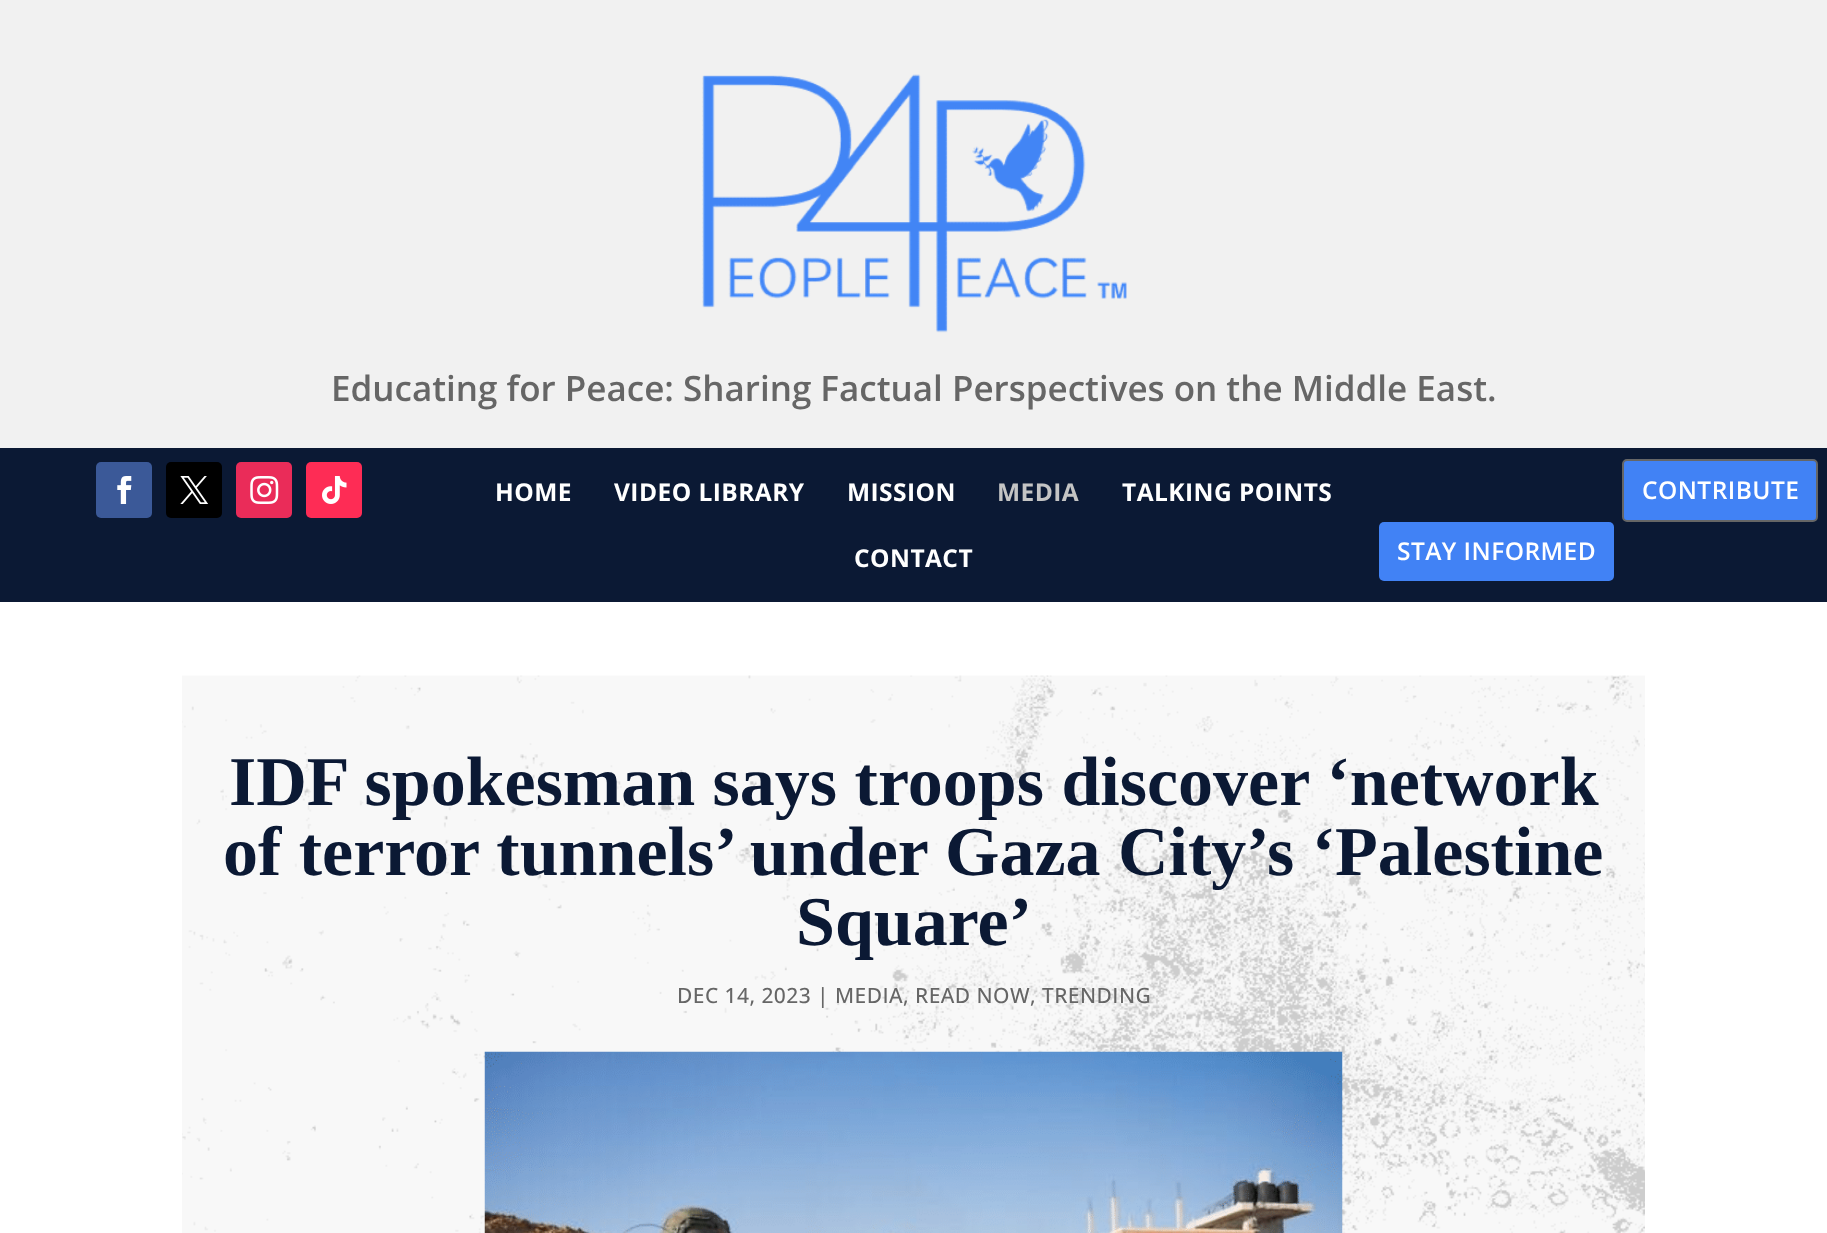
<svg xmlns="http://www.w3.org/2000/svg" width="1827" height="1233">
	<rect width="100%" height="100%" fill="#FFFFFF" />
	<rect x="0" y="0" width="1827" height="448" fill="#F1F1F1" />
	<image x="702" y="74" width="425" height="259" href="assets/img1.png" />
	<text x="331" y="401" font-family="Open Sans" font-size="35" font-weight="600" fill="#666666">Educating for Peace: Sharing Factual Perspectives on the Middle East.</text>
	<rect x="0" y="448" width="1827" height="154" fill="#0B1934" />
	<rect x="96" y="462" width="56" height="56" rx="5" fill="#3B5998" />
	<image x="117" y="476" width="15" height="28" href="assets/img2.png" />
	<rect x="166" y="462" width="56" height="56" rx="5" fill="#000000" />
	<image x="180" y="476" width="29" height="28" href="assets/img3.png" />
	<rect x="236" y="462" width="56" height="56" rx="5" fill="#EA2C59" />
	<image x="250" y="476" width="29" height="28" href="assets/img4.png" />
	<rect x="306" y="462" width="56" height="56" rx="5" fill="#FE2C55" />
	<image x="322" y="476" width="25" height="28" href="assets/img5.png" />
	<g font-family="Open Sans" font-size="24.5" font-weight="700" letter-spacing="0.45" fill="#FFFFFF">
		<text x="495" y="501">HOME</text>
		<text x="614" y="501">VIDEO LIBRARY</text>
		<text x="847" y="501">MISSION</text>
	</g>
	<text x="997" y="501" font-family="Open Sans" font-size="24.5" font-weight="700" letter-spacing="0.45" fill="#C4C4C4">MEDIA</text>
	<g font-family="Open Sans" font-size="24.5" font-weight="700" letter-spacing="0.45" fill="#FFFFFF">
		<text x="1122" y="501">TALKING POINTS</text>
		<text x="854" y="567">CONTACT</text>
	</g>
	<rect x="1623" y="460" width="194" height="61" rx="4" fill="#4182F5" stroke="#666666" stroke-width="2" />
	<text x="1642" y="499" font-family="Open Sans" font-size="24.5" font-weight="600" letter-spacing="0.45" fill="#FFFFFF">CONTRIBUTE</text>
	<rect x="1379" y="522" width="235" height="59" rx="5" fill="#4182F5" />
	<text x="1397" y="560" font-family="Open Sans" font-size="24.5" font-weight="600" letter-spacing="0.45" fill="#FFFFFF">STAY INFORMED</text>
	<image x="182" y="675" width="1463" height="558" href="assets/img6.png" />
	<g font-family="Liberation Serif" font-size="70" font-weight="700" fill="#0B1934">
		<text x="229" y="805">IDF spokesman says troops discover ‘network</text>
		<text x="223" y="875">of terror tunnels’ under Gaza City’s ‘Palestine</text>
		<text x="796" y="945">Square’</text>
	</g>
	<text x="677" y="1003" font-family="Open Sans" font-size="21" font-weight="500" letter-spacing="0.45" fill="#666666">DEC 14, 2023 | MEDIA, READ NOW, TRENDING</text>
	<image x="484" y="1051" width="859" height="182" href="assets/img7.png" />
</svg>
